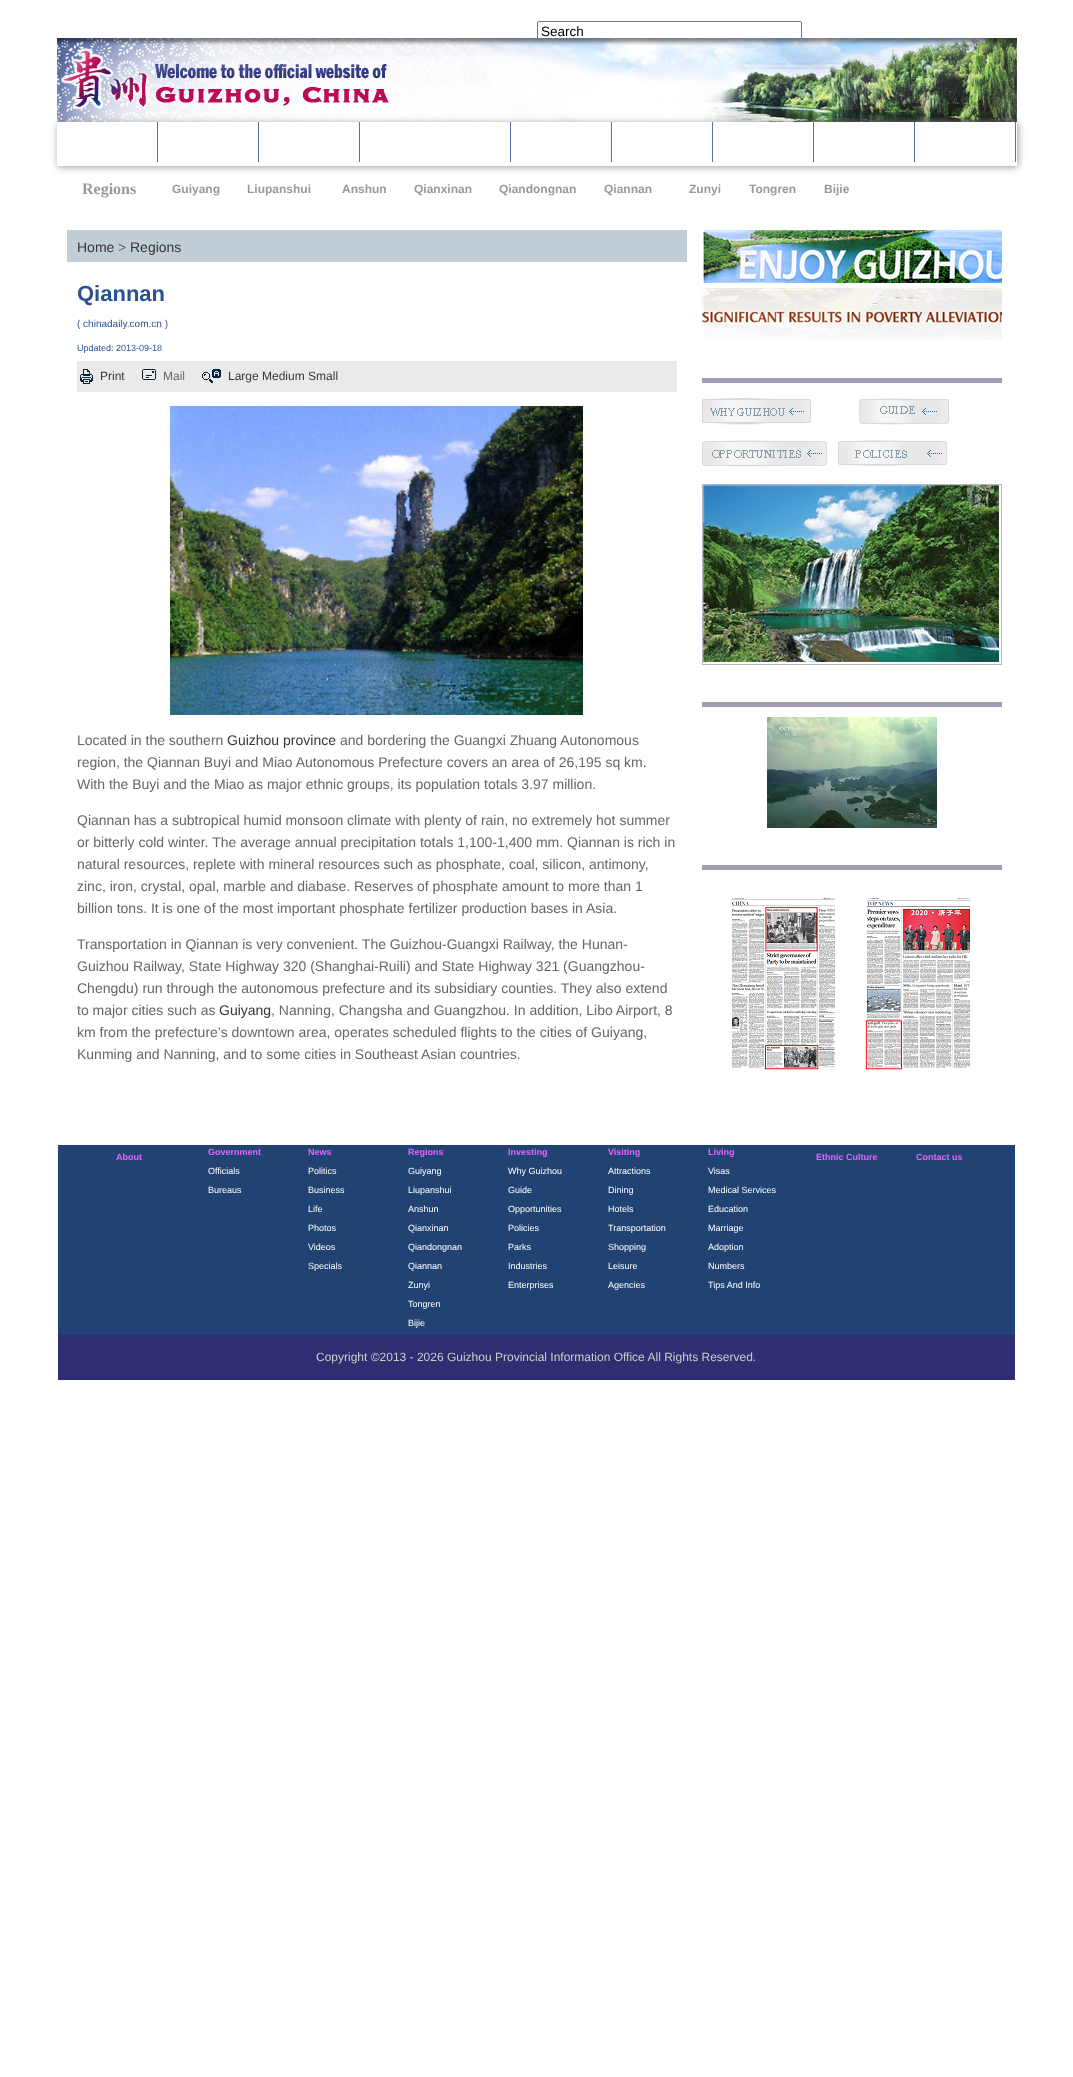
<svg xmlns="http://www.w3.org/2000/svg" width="1073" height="2077">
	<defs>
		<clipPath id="clip1"><path d="M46 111H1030V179H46ZM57 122H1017V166H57Z" clip-rule="evenodd" /></clipPath>
	</defs>
	<rect width="100%" height="100%" fill="#FFFFFF" />
	<rect x="537.5" y="21.5" width="264" height="20" rx="1.5" fill="none" stroke="#767676" />
	<text x="541" y="36" font-family="Liberation Sans" font-size="13.5" fill="#000000">Search</text>
	<image x="57" y="38" width="960" height="84" href="assets/img1.png" />
	<g clip-path="url(#clip1)">
		<rect x="58" y="123" width="960" height="44" fill="#999999" filter="blur(3.5px)" />
	</g>
	<rect x="157" y="122" width="1" height="40" fill="#5A72A7" />
	<rect x="258" y="122" width="1" height="40" fill="#5A72A7" />
	<rect x="359" y="122" width="1" height="40" fill="#5A72A7" />
	<rect x="510" y="122" width="1" height="40" fill="#5A72A7" />
	<rect x="611" y="122" width="1" height="40" fill="#5A72A7" />
	<rect x="712" y="122" width="1" height="40" fill="#5A72A7" />
	<rect x="813" y="122" width="1" height="40" fill="#5A72A7" />
	<rect x="914" y="122" width="1" height="40" fill="#5A72A7" />
	<rect x="1015" y="122" width="1" height="40" fill="#5A72A7" />
	<text x="82" y="194" font-family="Liberation Serif" font-size="16" font-weight="700" fill="#999999">Regions</text>
	<g font-family="Liberation Sans" font-size="12" font-weight="700" fill="#999999">
		<text x="172" y="193">Guiyang</text>
		<text x="247" y="193">Liupanshui</text>
		<text x="342" y="193">Anshun</text>
		<text x="414" y="193">Qianxinan</text>
		<text x="499" y="193">Qiandongnan</text>
		<text x="604" y="193">Qiannan</text>
		<text x="689" y="193">Zunyi</text>
		<text x="749" y="193">Tongren</text>
		<text x="824" y="193">Bijie</text>
	</g>
	<rect x="67" y="230" width="620" height="32" fill="#C1CED5" />
	<text x="77" y="252" font-family="Liberation Sans" font-size="14" fill="#363636">Home</text>
	<text x="118" y="252" font-family="Liberation Sans" font-size="14" fill="#666666">&gt;</text>
	<text x="130" y="252" font-family="Liberation Sans" font-size="14" fill="#363636">Regions</text>
	<text x="77" y="301" font-family="Liberation Sans" font-size="22" font-weight="700" fill="#2A5191">Qiannan</text>
	<text x="77" y="327" font-family="Liberation Sans" font-size="10" fill="#2A5191">( chinadaily.com.cn )</text>
	<text x="77" y="351" font-family="Liberation Sans" font-size="9" fill="#2A5191">Updated: 2013-09-18</text>
	<rect x="77" y="361" width="600" height="31" fill="#EAEAEA" />
	<image x="80" y="369" width="13" height="15" href="assets/img2.png" />
	<text x="100" y="380" font-family="Liberation Sans" font-size="12" fill="#363636">Print</text>
	<image x="142" y="369" width="14" height="13" href="assets/img3.png" />
	<text x="163" y="380" font-family="Liberation Sans" font-size="12" fill="#666666">Mail</text>
	<image x="202" y="369" width="19" height="15" href="assets/img4.png" />
	<text x="228" y="380" font-family="Liberation Sans" font-size="12" fill="#363636">Large Medium Small</text>
	<image x="170" y="406" width="413" height="309" href="assets/img5.png" />
	<text x="77" y="745" font-family="Liberation Sans" font-size="14" fill="#666666">Located in the southern</text>
	<text x="227" y="745" font-family="Liberation Sans" font-size="14" fill="#363636">Guizhou province</text>
	<g font-family="Liberation Sans" font-size="14" fill="#666666">
		<text x="340" y="745">and bordering the Guangxi Zhuang Autonomous</text>
		<text x="77" y="767">region, the Qiannan Buyi and Miao Autonomous Prefecture covers an area of 26,195 sq km.</text>
		<text x="77" y="789">With the Buyi and the Miao as major ethnic groups, its population totals 3.97 million.</text>
		<text x="77" y="825">Qiannan has a subtropical humid monsoon climate with plenty of rain, no extremely hot summer</text>
		<text x="77" y="847">or bitterly cold winter. The average annual precipitation totals 1,100-1,400 mm. Qiannan is rich in</text>
		<text x="77" y="869">natural resources, replete with mineral resources such as phosphate, coal, silicon, antimony,</text>
		<text x="77" y="891">zinc, iron, crystal, opal, marble and diabase. Reserves of phosphate amount to more than 1</text>
		<text x="77" y="913">billion tons. It is one of the most important phosphate fertilizer production bases in Asia.</text>
		<text x="77" y="949">Transportation in Qiannan is very convenient. The Guizhou-Guangxi Railway, the Hunan-</text>
		<text x="77" y="971">Guizhou Railway, State Highway 320 (Shanghai-Ruili) and State Highway 321 (Guangzhou-</text>
		<text x="77" y="993">Chengdu) run through the autonomous prefecture and its subsidiary counties. They also extend</text>
		<text x="77" y="1015">to major cities such as</text>
	</g>
	<text x="219" y="1015" font-family="Liberation Sans" font-size="14" fill="#363636">Guiyang</text>
	<g font-family="Liberation Sans" font-size="14" fill="#666666">
		<text x="271" y="1015">, Nanning, Changsha and Guangzhou. In addition, Libo Airport, 8</text>
		<text x="77" y="1037">km from the prefecture’s downtown area, operates scheduled flights to the cities of Guiyang,</text>
		<text x="77" y="1059">Kunming and Nanning, and to some cities in Southeast Asian countries.</text>
	</g>
	<image x="702" y="230" width="300" height="53" href="assets/img6.png" />
	<image x="702" y="288" width="300" height="52" href="assets/img7.png" />
	<rect x="702" y="378" width="300" height="5" fill="#9E9FB1" />
	<image x="702" y="398" width="109" height="27" href="assets/img8.png" />
	<image x="859" y="398" width="90" height="27" href="assets/img9.png" />
	<image x="702" y="440" width="125" height="27" href="assets/img10.png" />
	<image x="838" y="440" width="109" height="27" href="assets/img11.png" />
	<rect x="702.5" y="484.5" width="299" height="180" fill="none" stroke="#B5B6C4" />
	<image x="703" y="485" width="296" height="177" href="assets/img12.png" />
	<rect x="702" y="702" width="300" height="5" fill="#9E9FB1" />
	<image x="767" y="717" width="170" height="111" href="assets/img13.png" />
	<rect x="702" y="865" width="300" height="5" fill="#9E9FB1" />
	<image x="732" y="898" width="104" height="172" href="assets/img14.png" />
	<image x="865" y="898" width="106" height="172" href="assets/img15.png" />
	<rect x="58" y="1145" width="957" height="190" fill="#214373" />
	<g font-family="Liberation Sans" font-size="9" font-weight="700" fill="#EA62FD">
		<text x="116" y="1160">About</text>
		<text x="208" y="1155">Government</text>
	</g>
	<g font-family="Liberation Sans" font-size="9" fill="#FFFFFF">
		<text x="208" y="1174">Officials</text>
		<text x="208" y="1193">Bureaus</text>
	</g>
	<text x="308" y="1155" font-family="Liberation Sans" font-size="9" font-weight="700" fill="#EA62FD">News</text>
	<g font-family="Liberation Sans" font-size="9" fill="#FFFFFF">
		<text x="308" y="1174">Politics</text>
		<text x="308" y="1193">Business</text>
		<text x="308" y="1212">Life</text>
		<text x="308" y="1231">Photos</text>
		<text x="308" y="1250">Videos</text>
		<text x="308" y="1269">Specials</text>
	</g>
	<text x="408" y="1155" font-family="Liberation Sans" font-size="9" font-weight="700" fill="#EA62FD">Regions</text>
	<g font-family="Liberation Sans" font-size="9" fill="#FFFFFF">
		<text x="408" y="1174">Guiyang</text>
		<text x="408" y="1193">Liupanshui</text>
		<text x="408" y="1212">Anshun</text>
		<text x="408" y="1231">Qianxinan</text>
		<text x="408" y="1250">Qiandongnan</text>
		<text x="408" y="1269">Qiannan</text>
		<text x="408" y="1288">Zunyi</text>
		<text x="408" y="1307">Tongren</text>
		<text x="408" y="1326">Bijie</text>
	</g>
	<text x="508" y="1155" font-family="Liberation Sans" font-size="9" font-weight="700" fill="#EA62FD">Investing</text>
	<g font-family="Liberation Sans" font-size="9" fill="#FFFFFF">
		<text x="508" y="1174">Why Guizhou</text>
		<text x="508" y="1193">Guide</text>
		<text x="508" y="1212">Opportunities</text>
		<text x="508" y="1231">Policies</text>
		<text x="508" y="1250">Parks</text>
		<text x="508" y="1269">Industries</text>
		<text x="508" y="1288">Enterprises</text>
	</g>
	<text x="608" y="1155" font-family="Liberation Sans" font-size="9" font-weight="700" fill="#EA62FD">Visiting</text>
	<g font-family="Liberation Sans" font-size="9" fill="#FFFFFF">
		<text x="608" y="1174">Attractions</text>
		<text x="608" y="1193">Dining</text>
		<text x="608" y="1212">Hotels</text>
		<text x="608" y="1231">Transportation</text>
		<text x="608" y="1250">Shopping</text>
		<text x="608" y="1269">Leisure</text>
		<text x="608" y="1288">Agencies</text>
	</g>
	<text x="708" y="1155" font-family="Liberation Sans" font-size="9" font-weight="700" fill="#EA62FD">Living</text>
	<g font-family="Liberation Sans" font-size="9" fill="#FFFFFF">
		<text x="708" y="1174">Visas</text>
		<text x="708" y="1193">Medical Services</text>
		<text x="708" y="1212">Education</text>
		<text x="708" y="1231">Marriage</text>
		<text x="708" y="1250">Adoption</text>
		<text x="708" y="1269">Numbers</text>
		<text x="708" y="1288">Tips And Info</text>
	</g>
	<g font-family="Liberation Sans" font-size="9" font-weight="700" fill="#EA62FD">
		<text x="816" y="1160">Ethnic Culture</text>
		<text x="916" y="1160">Contact us</text>
	</g>
	<rect x="58" y="1335" width="957" height="45" fill="#302E72" />
	<text x="316" y="1361" font-family="Liberation Sans" font-size="12" fill="#CCCCCC">Copyright ©2013 - 2026 Guizhou Provincial Information Office All Rights Reserved.</text>
</svg>
